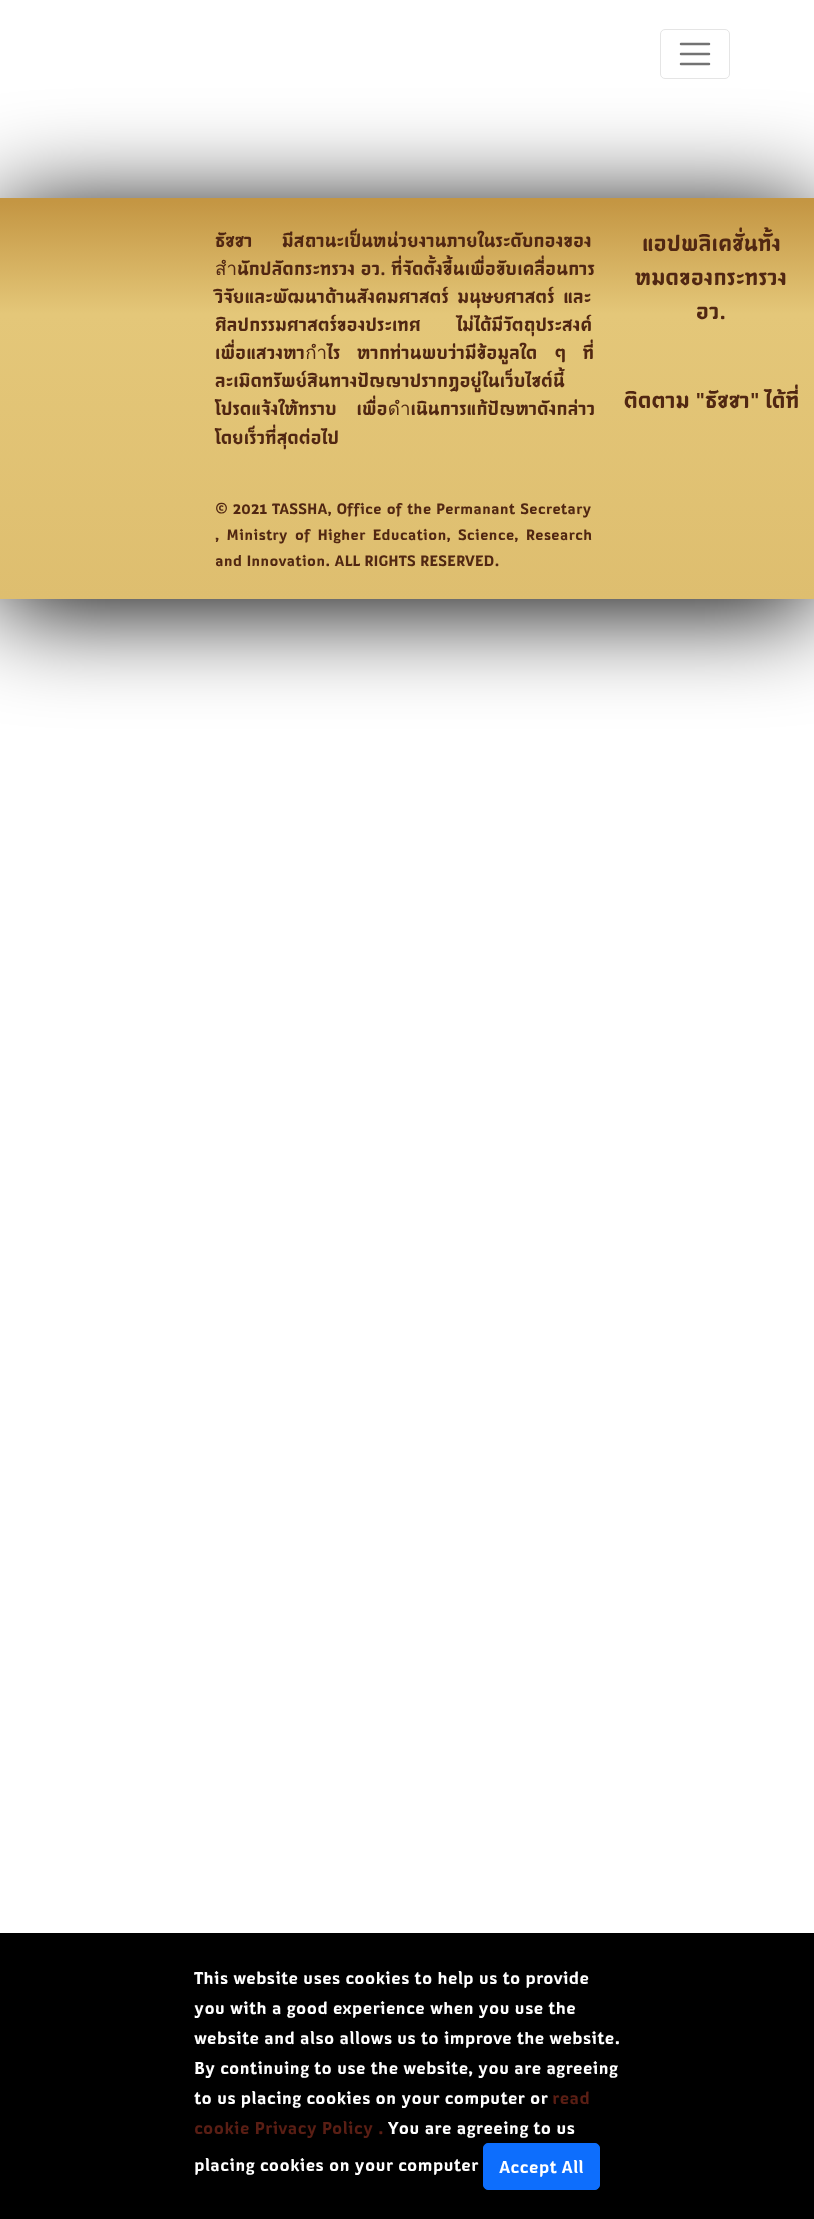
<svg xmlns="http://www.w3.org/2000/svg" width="814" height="2219">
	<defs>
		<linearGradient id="g1" gradientUnits="userSpaceOnUse" x1="408" y1="599" x2="408" y2="198"><stop offset="0" stop-color="#DEBE6F" /><stop offset="0.71" stop-color="#E4C779" /><stop offset="0.99" stop-color="#C49643" /></linearGradient>
	</defs>
	<rect width="100%" height="100%" fill="#FFFFFF" />
	<rect x="0" y="208" width="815" height="401" fill="#000000" fill-opacity="0.99" filter="blur(50px)" />
	<rect x="660.5" y="29.5" width="69" height="49" rx="4.5" fill="none" stroke="#E5E5E5" />
	<path d="M681 44H709M681 54H709M681 64H709" fill="none" stroke="#737373" stroke-width="2.5" stroke-linecap="round" />
	<rect x="0" y="198" width="814" height="401" fill="url(#g1)" />
	<g font-family="'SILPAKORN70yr'" font-size="18.75" fill="#512712">
		<text x="215" y="247" word-spacing="25">ธัชชา มีสถานะเป็นหน่วยงานภายในระดับกองของ</text>
		<text x="215" y="275" word-spacing="1">สำนักปลัดกระทรวง อว. ที่จัดตั้งขึ้นเพื่อขับเคลื่อนการ</text>
		<text x="215" y="303" word-spacing="4">วิจัยและพัฒนาด้านสังคมศาสตร์ มนุษยศาสตร์ และ</text>
		<text x="215" y="331" word-spacing="31">ศิลปกรรมศาสตร์ของประเทศ ไม่ได้มีวัตถุประสงค์</text>
		<text x="215" y="359" word-spacing="12">เพื่อแสวงหากำไร หากท่านพบว่ามีข้อมูลใด ๆ ที่</text>
		<text x="215" y="387">ละเมิดทรัพย์สินทางปัญญาปรากฏอยู่ในเว็บไซต์นี้</text>
		<text x="215" y="415" word-spacing="15">โปรดแจ้งให้ทราบ เพื่อดำเนินการแก้ปัญหาดังกล่าว</text>
		<text x="215" y="444">โดยเร็วที่สุดต่อไป</text>
	</g>
	<g font-family="'SILPAKORN70yr'" font-size="17.5" fill="#512712">
		<text x="215" y="514" word-spacing="0.5">© 2021 TASSHA, Office of the Permanant Secretary</text>
		<text x="215" y="540" word-spacing="2.75">, Ministry of Higher Education, Science, Research</text>
		<text x="215" y="566">and Innovation. ALL RIGHTS RESERVED.</text>
	</g>
	<g font-family="'SILPAKORN70yr'" font-size="22.5" fill="#512712">
		<text x="642" y="251">แอปพลิเคชั่นทั้ง</text>
		<text x="635" y="285">หมดของกระทรวง</text>
		<text x="696" y="319">อว.</text>
		<text x="624" y="408">ติดตาม "ธัชชา" ได้ที่</text>
	</g>
	<rect x="0" y="1933" width="814" height="286" fill="#000000" />
	<g font-family="'SILPAKORN70yr'" font-size="20" fill="#FFFFFF">
		<text x="194" y="1984">This website uses cookies to help us to provide</text>
		<text x="194" y="2014">you with a good experience when you use the</text>
		<text x="194" y="2044">website and also allows us to improve the website.</text>
		<text x="194" y="2074">By continuing to use the website, you are agreeing</text>
		<text x="194" y="2104">to us placing cookies on your computer or</text>
	</g>
	<g font-family="'SILPAKORN70yr'" font-size="20" fill="#5A1E14">
		<text x="552" y="2104">read</text>
		<text x="194" y="2134">cookie Privacy Policy .</text>
	</g>
	<g font-family="'SILPAKORN70yr'" font-size="20" fill="#FFFFFF">
		<text x="388" y="2134">You are agreeing to us</text>
		<text x="194" y="2171">placing cookies on your computer</text>
	</g>
	<rect x="483.5" y="2143.5" width="116" height="46" rx="4.5" fill="#0D6EFD" stroke="#0D6EFD" />
	<text x="499" y="2173" font-family="'SILPAKORN70yr'" font-size="20" fill="#FFFFFF">Accept All</text>
</svg>
